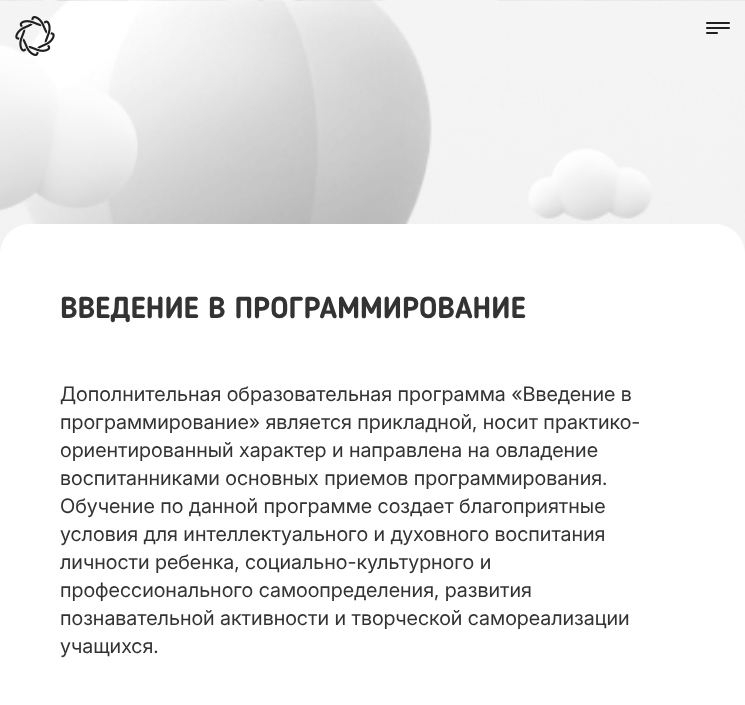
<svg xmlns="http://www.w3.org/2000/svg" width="745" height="705">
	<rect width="100%" height="100%" fill="#FFFFFF" />
	<image x="0" y="0" width="745" height="254" href="assets/img3.png" />
	<image x="15" y="16" width="40" height="40" href="assets/img1.png" />
	<image x="706" y="22" width="24" height="12" href="assets/img2.png" />
	<rect x="0" y="224" width="745" height="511" rx="30" fill="#FFFFFF" />
	<text x="60" y="318" font-family="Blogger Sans" font-size="30" font-weight="700" fill="#333333">ВВЕДЕНИЕ В ПРОГРАММИРОВАНИЕ</text>
	<g font-family="Inter" font-size="20" fill="#333333">
		<text x="60" y="401">Дополнительная образовательная программа «Введение в</text>
		<text x="60" y="429">программирование» является прикладной, носит практико-</text>
		<text x="60" y="457">ориентированный характер и направлена на овладение</text>
		<text x="60" y="485">воспитанниками основных приемов программирования.</text>
		<text x="60" y="513">Обучение по данной программе создает благоприятные</text>
		<text x="60" y="541">условия для интеллектуального и духовного воспитания</text>
		<text x="60" y="569">личности ребенка, социально-культурного и</text>
		<text x="60" y="597">профессионального самоопределения, развития</text>
		<text x="60" y="625">познавательной активности и творческой самореализации</text>
		<text x="60" y="653">учащихся.</text>
	</g>
</svg>
